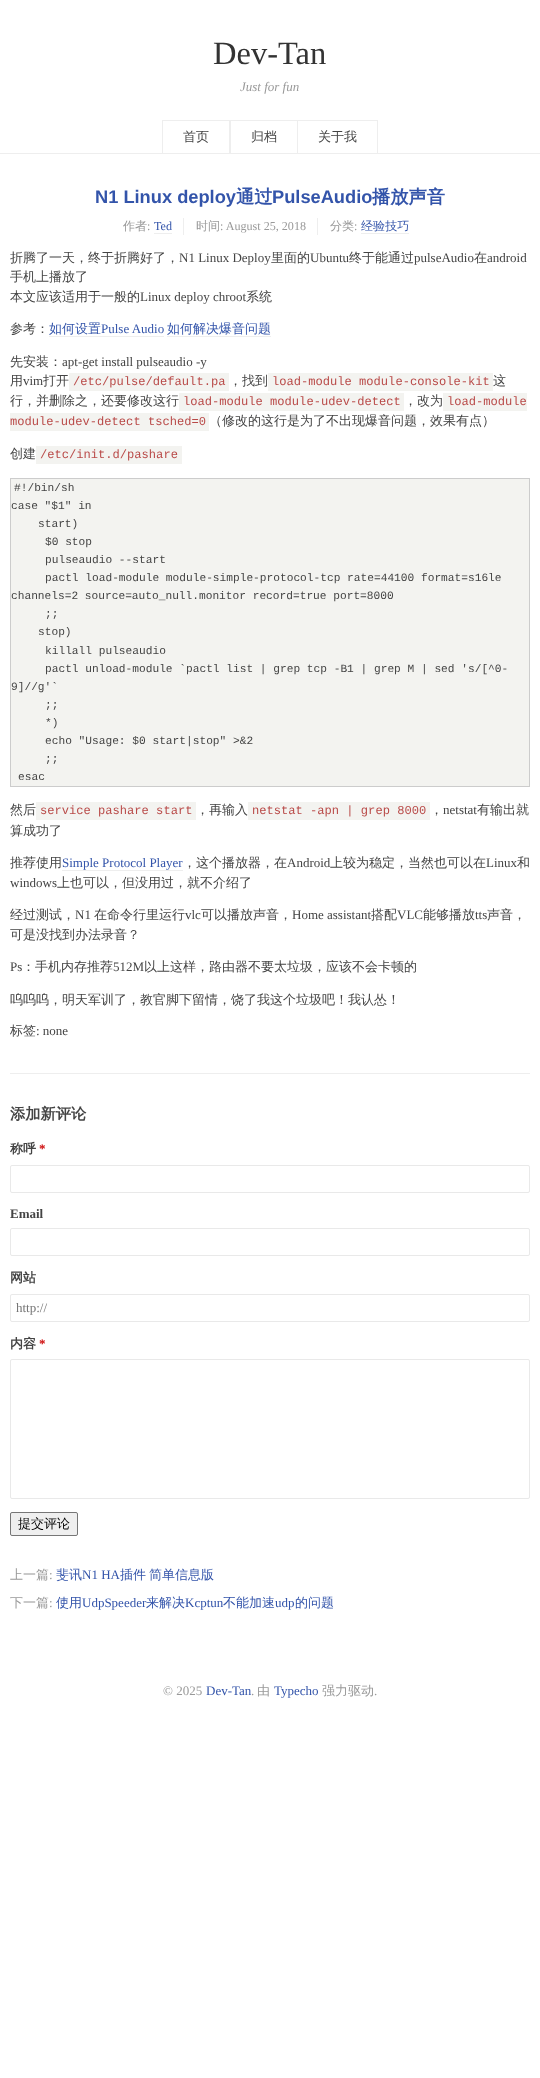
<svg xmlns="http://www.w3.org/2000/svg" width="540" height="2078">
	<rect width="100%" height="100%" fill="#FFFFFF" />
	<rect x="0" y="153" width="540" height="1" fill="#EEEEEE" />
	<text x="213" y="64" font-family="Liberation Serif" font-size="32.5" fill="#333333">Dev-Tan</text>
	<text x="240" y="91" font-family="Liberation Serif" font-size="13" font-style="italic" fill="#999999">Just for fun</text>
	<rect x="162" y="120" width="136" height="1" fill="#EEEEEE" />
	<rect x="229" y="120" width="2" height="33" fill="#EEEEEE" />
	<rect x="162" y="120" width="1" height="33" fill="#EEEEEE" />
	<text x="183" y="141" font-family="WenQuanYi Zen Hei" font-size="13" font-weight="500" fill="#444444">首页</text>
	<rect x="297" y="120" width="1" height="33" fill="#EEEEEE" />
	<text x="251" y="141" font-family="WenQuanYi Zen Hei" font-size="13" font-weight="500" fill="#444444">归档</text>
	<rect x="297" y="120" width="81" height="1" fill="#EEEEEE" />
	<rect x="377" y="120" width="1" height="33" fill="#EEEEEE" />
	<text x="318" y="141" font-family="WenQuanYi Zen Hei" font-size="13" font-weight="500" fill="#444444">关于我</text>
	<rect x="10" y="1073" width="520" height="1" fill="#EEEEEE" />
	<text x="95" y="203" font-family="Liberation Sans" font-size="18.25" font-weight="700" fill="#3354AA">N1 Linux deploy</text>
	<text x="236" y="203" font-family="WenQuanYi Zen Hei" font-size="18.25" font-weight="700" fill="#3354AA">通过</text>
	<text x="272" y="203" font-family="Liberation Sans" font-size="18.25" font-weight="700" fill="#3354AA">PulseAudio</text>
	<text x="372" y="203" font-family="WenQuanYi Zen Hei" font-size="18.25" font-weight="700" fill="#3354AA">播放声音</text>
	<text x="123" y="230" font-family="WenQuanYi Zen Hei" font-size="12.1" font-weight="500" fill="#999999">作者</text>
	<text x="147" y="230" font-family="Liberation Serif" font-size="12.1" fill="#999999">:</text>
	<text x="154" y="230" font-family="Liberation Serif" font-size="12.1" fill="#3354AA">Ted</text>
	<rect x="154" y="233" width="18" height="1" fill="#EEEEEE" />
	<rect x="183" y="218" width="1" height="17" fill="#EEEEEE" />
	<text x="196" y="230" font-family="WenQuanYi Zen Hei" font-size="12.1" font-weight="500" fill="#999999">时间</text>
	<text x="220" y="230" font-family="Liberation Serif" font-size="12.1" fill="#999999">: August 25, 2018</text>
	<rect x="317" y="218" width="1" height="17" fill="#EEEEEE" />
	<text x="330" y="230" font-family="WenQuanYi Zen Hei" font-size="12.1" font-weight="500" fill="#999999">分类</text>
	<text x="354" y="230" font-family="Liberation Serif" font-size="12.1" fill="#999999">:</text>
	<text x="361" y="230" font-family="WenQuanYi Zen Hei" font-size="12.1" font-weight="500" fill="#3354AA">经验技巧</text>
	<rect x="361" y="233" width="48" height="1" fill="#EEEEEE" />
	<text x="10" y="262" font-family="WenQuanYi Zen Hei" font-size="13" font-weight="500" fill="#444444">折腾了一天，终于折腾好了，</text>
	<text x="179" y="262" font-family="Liberation Serif" font-size="13" fill="#444444">N1 Linux Deploy</text>
	<text x="271" y="262" font-family="WenQuanYi Zen Hei" font-size="13" font-weight="500" fill="#444444">里面的</text>
	<text x="310" y="262" font-family="Liberation Serif" font-size="13" fill="#444444">Ubuntu</text>
	<text x="349" y="262" font-family="WenQuanYi Zen Hei" font-size="13" font-weight="500" fill="#444444">终于能通过</text>
	<text x="414" y="262" font-family="Liberation Serif" font-size="13" fill="#444444">pulseAudio</text>
	<text x="474" y="262" font-family="WenQuanYi Zen Hei" font-size="13" font-weight="500" fill="#444444">在</text>
	<text x="487" y="262" font-family="Liberation Serif" font-size="13" fill="#444444">android</text>
	<g font-family="WenQuanYi Zen Hei" font-size="13" font-weight="500" fill="#444444">
		<text x="10" y="281">手机上播放了</text>
		<text x="10" y="301">本文应该适用于一般的</text>
	</g>
	<text x="140" y="301" font-family="Liberation Serif" font-size="13" fill="#444444">Linux deploy chroot</text>
	<g font-family="WenQuanYi Zen Hei" font-size="13" font-weight="500" fill="#444444">
		<text x="246" y="301">系统</text>
		<text x="10" y="333">参考：</text>
	</g>
	<text x="49" y="333" font-family="WenQuanYi Zen Hei" font-size="13" font-weight="500" fill="#3354AA">如何设置</text>
	<text x="101" y="333" font-family="Liberation Serif" font-size="13" fill="#3354AA">Pulse Audio</text>
	<rect x="49" y="336" width="115" height="1" fill="#EEEEEE" />
	<text x="167" y="333" font-family="WenQuanYi Zen Hei" font-size="13" font-weight="500" fill="#3354AA">如何解决爆音问题</text>
	<rect x="167" y="336" width="104" height="1" fill="#EEEEEE" />
	<text x="10" y="366" font-family="WenQuanYi Zen Hei" font-size="13" font-weight="500" fill="#444444">先安装：</text>
	<text x="62" y="366" font-family="Liberation Serif" font-size="13" fill="#444444">apt-get install pulseaudio -y</text>
	<text x="10" y="385" font-family="WenQuanYi Zen Hei" font-size="13" font-weight="500" fill="#444444">用</text>
	<text x="23" y="385" font-family="Liberation Serif" font-size="13" fill="#444444">vim</text>
	<text x="43" y="385" font-family="WenQuanYi Zen Hei" font-size="13" font-weight="500" fill="#444444">打开</text>
	<rect x="69" y="373" width="160" height="18" fill="#F3F3F0" />
	<text x="73" y="385" font-family="Liberation Mono" font-size="12.1" fill="#B94A48">/etc/pulse/default.pa</text>
	<text x="229" y="385" font-family="WenQuanYi Zen Hei" font-size="13" font-weight="500" fill="#444444">，找到</text>
	<rect x="268" y="373" width="225" height="18" fill="#F3F3F0" />
	<text x="272" y="385" font-family="Liberation Mono" font-size="12.1" fill="#B94A48">load-module module-console-kit</text>
	<g font-family="WenQuanYi Zen Hei" font-size="13" font-weight="500" fill="#444444">
		<text x="493" y="385">这</text>
		<text x="10" y="405">行，并删除之，还要修改这行</text>
	</g>
	<rect x="179" y="393" width="225" height="18" fill="#F3F3F0" />
	<text x="183" y="405" font-family="Liberation Mono" font-size="12.1" fill="#B94A48">load-module module-udev-detect</text>
	<text x="404" y="405" font-family="WenQuanYi Zen Hei" font-size="13" font-weight="500" fill="#444444">，改为</text>
	<rect x="443" y="393" width="84" height="18" fill="#F3F3F0" />
	<text x="447" y="405" font-family="Liberation Mono" font-size="12.1" fill="#B94A48">load-module</text>
	<rect x="10" y="413" width="199" height="18" fill="#F3F3F0" />
	<text x="10" y="425" font-family="Liberation Mono" font-size="12.1" fill="#B94A48">module-udev-detect tsched=0</text>
	<g font-family="WenQuanYi Zen Hei" font-size="13" font-weight="500" fill="#444444">
		<text x="209" y="425">（修改的这行是为了不出现爆音问题，效果有点）</text>
		<text x="10" y="458">创建</text>
	</g>
	<rect x="36" y="446" width="146" height="18" fill="#F3F3F0" />
	<text x="40" y="458" font-family="Liberation Mono" font-size="12.1" fill="#B94A48">/etc/init.d/pashare</text>
	<rect x="10.5" y="478.5" width="519" height="308" fill="#F3F3F0" stroke="#CCCCCC" />
	<g font-family="Liberation Mono" font-size="11.2" fill="#444444">
		<text x="14" y="491">#!/bin/sh</text>
		<text x="11" y="509">case "$1" in</text>
		<text x="38" y="527">start)</text>
		<text x="45" y="545">$0 stop</text>
		<text x="45" y="563">pulseaudio --start</text>
		<text x="45" y="581">pactl load-module module-simple-protocol-tcp rate=44100 format=s16le</text>
		<text x="11" y="599">channels=2 source=auto_null.monitor record=true port=8000</text>
		<text x="45" y="617">;;</text>
		<text x="38" y="635">stop)</text>
		<text x="45" y="654">killall pulseaudio</text>
		<text x="45" y="672">pactl unload-module `pactl list | grep tcp -B1 | grep M | sed 's/[^0-</text>
		<text x="11" y="690">9]//g'`</text>
		<text x="45" y="708">;;</text>
		<text x="45" y="726">*)</text>
		<text x="45" y="744">echo "Usage: $0 start|stop" &gt;&amp;2</text>
		<text x="45" y="762">;;</text>
		<text x="18" y="780">esac</text>
	</g>
	<text x="10" y="814" font-family="WenQuanYi Zen Hei" font-size="13" font-weight="500" fill="#444444">然后</text>
	<rect x="36" y="802" width="160" height="18" fill="#F3F3F0" />
	<text x="40" y="814" font-family="Liberation Mono" font-size="12.1" fill="#B94A48">service pashare start</text>
	<text x="196" y="814" font-family="WenQuanYi Zen Hei" font-size="13" font-weight="500" fill="#444444">，再输入</text>
	<rect x="248" y="802" width="182" height="18" fill="#F3F3F0" />
	<text x="252" y="814" font-family="Liberation Mono" font-size="12.1" fill="#B94A48">netstat -apn | grep 8000</text>
	<text x="430" y="814" font-family="WenQuanYi Zen Hei" font-size="13" font-weight="500" fill="#444444">，</text>
	<text x="443" y="814" font-family="Liberation Serif" font-size="13" fill="#444444">netstat</text>
	<g font-family="WenQuanYi Zen Hei" font-size="13" font-weight="500" fill="#444444">
		<text x="477" y="814">有输出就</text>
		<text x="10" y="835">算成功了</text>
		<text x="10" y="867">推荐使用</text>
	</g>
	<text x="62" y="867" font-family="Liberation Serif" font-size="13" fill="#3354AA">Simple Protocol Player</text>
	<rect x="62" y="870" width="121" height="1" fill="#EEEEEE" />
	<text x="183" y="867" font-family="WenQuanYi Zen Hei" font-size="13" font-weight="500" fill="#444444">，这个播放器，在</text>
	<text x="287" y="867" font-family="Liberation Serif" font-size="13" fill="#444444">Android</text>
	<text x="330" y="867" font-family="WenQuanYi Zen Hei" font-size="13" font-weight="500" fill="#444444">上较为稳定，当然也可以在</text>
	<text x="486" y="867" font-family="Liberation Serif" font-size="13" fill="#444444">Linux</text>
	<text x="517" y="867" font-family="WenQuanYi Zen Hei" font-size="13" font-weight="500" fill="#444444">和</text>
	<text x="10" y="887" font-family="Liberation Serif" font-size="13" fill="#444444">windows</text>
	<g font-family="WenQuanYi Zen Hei" font-size="13" font-weight="500" fill="#444444">
		<text x="57" y="887">上也可以，但没用过，就不介绍了</text>
		<text x="10" y="919">经过测试，</text>
	</g>
	<text x="75" y="919" font-family="Liberation Serif" font-size="13" fill="#444444">N1</text>
	<text x="94" y="919" font-family="WenQuanYi Zen Hei" font-size="13" font-weight="500" fill="#444444">在命令行里运行</text>
	<text x="185" y="919" font-family="Liberation Serif" font-size="13" fill="#444444">vlc</text>
	<text x="201" y="919" font-family="WenQuanYi Zen Hei" font-size="13" font-weight="500" fill="#444444">可以播放声音，</text>
	<text x="292" y="919" font-family="Liberation Serif" font-size="13" fill="#444444">Home assistant</text>
	<text x="371" y="919" font-family="WenQuanYi Zen Hei" font-size="13" font-weight="500" fill="#444444">搭配</text>
	<text x="397" y="919" font-family="Liberation Serif" font-size="13" fill="#444444">VLC</text>
	<text x="423" y="919" font-family="WenQuanYi Zen Hei" font-size="13" font-weight="500" fill="#444444">能够播放</text>
	<text x="475" y="919" font-family="Liberation Serif" font-size="13" fill="#444444">tts</text>
	<g font-family="WenQuanYi Zen Hei" font-size="13" font-weight="500" fill="#444444">
		<text x="487" y="919">声音，</text>
		<text x="10" y="939">可是没找到办法录音？</text>
	</g>
	<text x="10" y="971" font-family="Liberation Serif" font-size="13" fill="#444444">Ps</text>
	<text x="22" y="971" font-family="WenQuanYi Zen Hei" font-size="13" font-weight="500" fill="#444444">：手机内存推荐</text>
	<text x="113" y="971" font-family="Liberation Serif" font-size="13" fill="#444444">512M</text>
	<g font-family="WenQuanYi Zen Hei" font-size="13" font-weight="500" fill="#444444">
		<text x="144" y="971">以上这样，路由器不要太垃圾，应该不会卡顿的</text>
		<text x="10" y="1004">呜呜呜，明天军训了，教官脚下留情，饶了我这个垃圾吧！我认怂！</text>
		<text x="10" y="1035">标签</text>
	</g>
	<text x="36" y="1035" font-family="Liberation Serif" font-size="13" fill="#444444">: none</text>
	<text x="10" y="1119" font-family="WenQuanYi Zen Hei" font-size="15.25" font-weight="700" fill="#444444">添加新评论</text>
	<text x="10" y="1153" font-family="WenQuanYi Zen Hei" font-size="13" font-weight="700" fill="#444444">称呼</text>
	<text x="39" y="1153" font-family="Liberation Serif" font-size="13" font-weight="700" fill="#CC0000">*</text>
	<rect x="10.5" y="1165.5" width="519" height="27" rx="1.5" fill="none" stroke="#E9E9E9" />
	<text x="10" y="1218" font-family="Liberation Serif" font-size="13" font-weight="700" fill="#444444">Email</text>
	<rect x="10.5" y="1228.5" width="519" height="27" rx="1.5" fill="none" stroke="#E9E9E9" />
	<text x="10" y="1282" font-family="WenQuanYi Zen Hei" font-size="13" font-weight="700" fill="#444444">网站</text>
	<rect x="10.5" y="1294.5" width="519" height="27" rx="1.5" fill="none" stroke="#E9E9E9" />
	<text x="16" y="1312" font-family="Liberation Serif" font-size="13" fill="#757575">http://</text>
	<text x="10" y="1348" font-family="WenQuanYi Zen Hei" font-size="13" font-weight="700" fill="#444444">内容</text>
	<text x="39" y="1348" font-family="Liberation Serif" font-size="13" font-weight="700" fill="#CC0000">*</text>
	<rect x="10.5" y="1359.5" width="519" height="139" rx="1.5" fill="none" stroke="#E9E9E9" />
	<rect x="10.5" y="1512.5" width="67" height="23" rx="1.5" fill="#EFEFEF" stroke="#767676" />
	<text x="18" y="1528" font-family="WenQuanYi Zen Hei" font-size="13" font-weight="500" fill="#000000">提交评论</text>
	<text x="10" y="1579" font-family="WenQuanYi Zen Hei" font-size="13" font-weight="500" fill="#999999">上一篇</text>
	<text x="49" y="1579" font-family="Liberation Serif" font-size="13" fill="#999999">:</text>
	<text x="56" y="1579" font-family="WenQuanYi Zen Hei" font-size="13" font-weight="500" fill="#3354AA">斐讯</text>
	<text x="82" y="1579" font-family="Liberation Serif" font-size="13" fill="#3354AA">N1 HA</text>
	<g font-family="WenQuanYi Zen Hei" font-size="13" font-weight="500" fill="#3354AA">
		<text x="120" y="1579">插件</text>
		<text x="149" y="1579">简单信息版</text>
	</g>
	<text x="10" y="1607" font-family="WenQuanYi Zen Hei" font-size="13" font-weight="500" fill="#999999">下一篇</text>
	<text x="49" y="1607" font-family="Liberation Serif" font-size="13" fill="#999999">:</text>
	<text x="56" y="1607" font-family="WenQuanYi Zen Hei" font-size="13" font-weight="500" fill="#3354AA">使用</text>
	<text x="82" y="1607" font-family="Liberation Serif" font-size="13" fill="#3354AA">UdpSpeeder</text>
	<text x="146" y="1607" font-family="WenQuanYi Zen Hei" font-size="13" font-weight="500" fill="#3354AA">来解决</text>
	<text x="185" y="1607" font-family="Liberation Serif" font-size="13" fill="#3354AA">Kcptun</text>
	<text x="223" y="1607" font-family="WenQuanYi Zen Hei" font-size="13" font-weight="500" fill="#3354AA">不能加速</text>
	<text x="275" y="1607" font-family="Liberation Serif" font-size="13" fill="#3354AA">udp</text>
	<text x="295" y="1607" font-family="WenQuanYi Zen Hei" font-size="13" font-weight="500" fill="#3354AA">的问题</text>
	<text x="163" y="1695" font-family="Liberation Serif" font-size="13" fill="#999999">© 2025</text>
	<text x="206" y="1695" font-family="Liberation Serif" font-size="13" fill="#3354AA">Dev-Tan</text>
	<text x="251" y="1695" font-family="Liberation Serif" font-size="13" fill="#999999">.</text>
	<text x="257" y="1695" font-family="WenQuanYi Zen Hei" font-size="13" font-weight="500" fill="#999999">由</text>
	<text x="274" y="1695" font-family="Liberation Serif" font-size="13" fill="#3354AA">Typecho</text>
	<text x="322" y="1695" font-family="WenQuanYi Zen Hei" font-size="13" font-weight="500" fill="#999999">强力驱动</text>
	<text x="374" y="1695" font-family="Liberation Serif" font-size="13" fill="#999999">.</text>
</svg>
